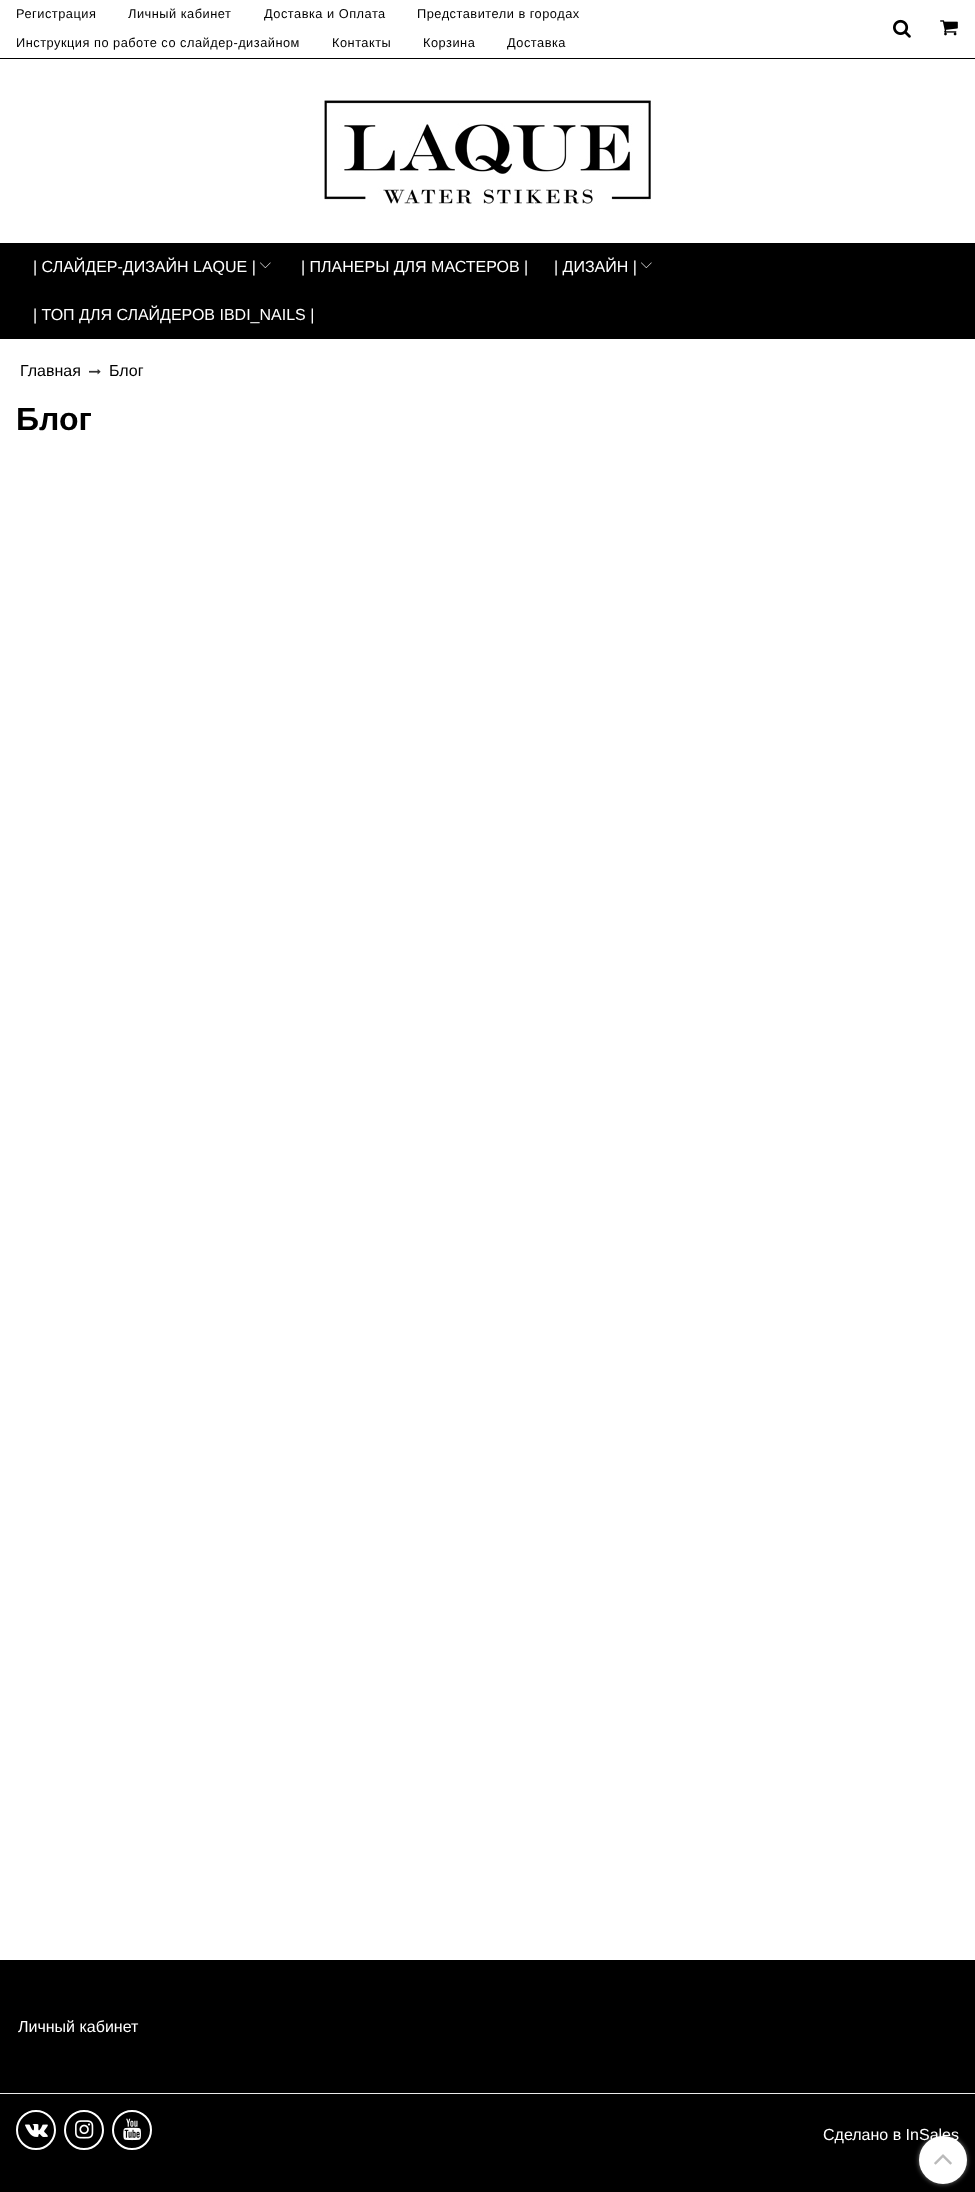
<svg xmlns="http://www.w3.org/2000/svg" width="975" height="2192">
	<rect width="100%" height="100%" fill="#FFFFFF" />
	<rect x="0" y="58" width="975" height="1" fill="#000000" />
	<g font-family="Liberation Sans" font-size="12.8" letter-spacing="0.5" fill="#000000">
		<text x="16" y="18">Регистрация</text>
		<text x="128" y="18">Личный кабинет</text>
		<text x="264" y="18">Доставка и Оплата</text>
		<text x="417" y="18">Представители в городах</text>
		<text x="16" y="47">Инструкция по работе со слайдер-дизайном</text>
		<text x="332" y="47">Контакты</text>
		<text x="423" y="47">Корзина</text>
		<text x="507" y="47">Доставка</text>
	</g>
	<image x="893" y="19" width="18" height="19" href="assets/img1.png" />
	<image x="940" y="20" width="18" height="16" href="assets/img2.png" />
	<image x="324" y="100" width="327" height="104" href="assets/img3.png" />
	<rect x="0" y="243" width="975" height="96" fill="#000000" />
	<text x="33" y="272" font-family="Liberation Sans" font-size="16" fill="#FFFFFF">| СЛАЙДЕР-ДИЗАЙН LAQUE |</text>
	<image x="260" y="262" width="11" height="6" href="assets/img4.png" />
	<g font-family="Liberation Sans" font-size="16" fill="#FFFFFF">
		<text x="301" y="272">| ПЛАНЕРЫ ДЛЯ МАСТЕРОВ |</text>
		<text x="554" y="272">| ДИЗАЙН |</text>
	</g>
	<image x="641" y="262" width="11" height="6" href="assets/img4.png" />
	<text x="33" y="320" font-family="Liberation Sans" font-size="16" fill="#FFFFFF">| ТОП ДЛЯ СЛАЙДЕРОВ IBDI_NAILS |</text>
	<text x="20" y="376" font-family="Liberation Sans" font-size="16" fill="#000000">Главная</text>
	<image x="89" y="369" width="12" height="6" href="assets/img5.png" />
	<text x="109" y="376" font-family="Liberation Sans" font-size="16" fill="#000000">Блог</text>
	<text x="16" y="430" font-family="Liberation Sans" font-size="32" font-weight="700" fill="#000000">Блог</text>
	<rect x="0" y="1960" width="975" height="232" fill="#000000" />
	<rect x="0" y="2093" width="975" height="1" fill="#EBEBEB" />
	<text x="18" y="2032" font-family="Liberation Sans" font-size="16" fill="#FFFFFF">Личный кабинет</text>
	<rect x="919" y="2136" width="48" height="48" rx="24" fill="#777777" filter="blur(2.5px)" />
	<circle cx="943" cy="2160" r="24" fill="#FFFFFF" />
	<image x="934" y="2154" width="18" height="11" href="assets/img6.png" />
	<circle cx="36" cy="2130" r="19" fill="none" stroke="#FFFFFF" stroke-width="2" />
	<image x="25" y="2124" width="23" height="13" href="assets/img7.png" />
	<circle cx="84" cy="2130" r="19" fill="none" stroke="#FFFFFF" stroke-width="2" />
	<image x="75" y="2120" width="19" height="19" href="assets/img8.png" />
	<circle cx="132" cy="2130" r="19" fill="none" stroke="#FFFFFF" stroke-width="2" />
	<image x="123" y="2118" width="18" height="23" href="assets/img9.png" />
	<text x="823" y="2140" font-family="Liberation Sans" font-size="16" fill="#FFFFFF">Сделано в InSales</text>
</svg>
